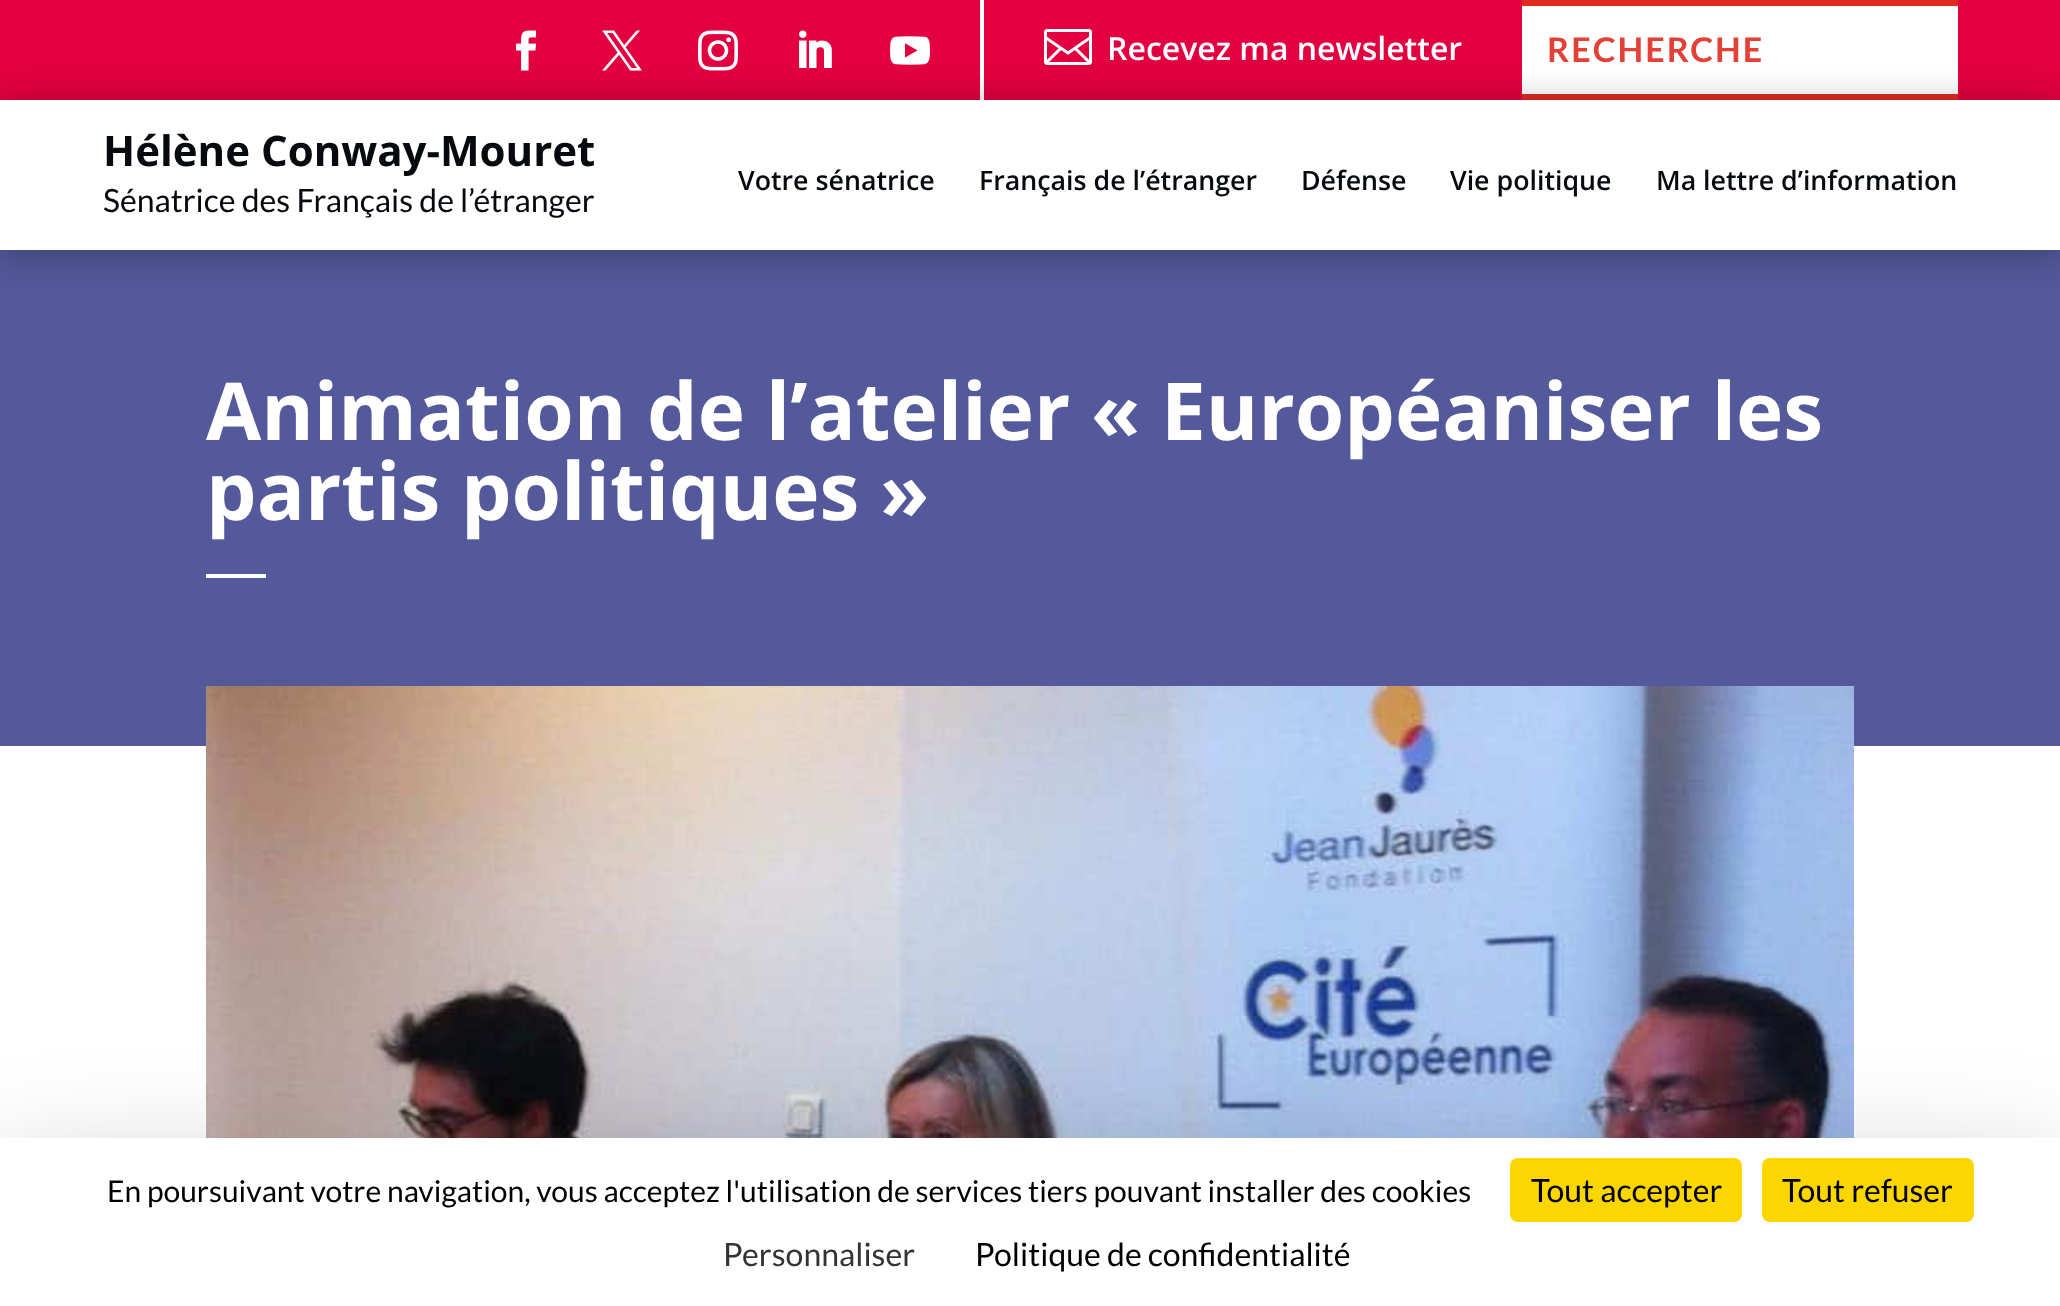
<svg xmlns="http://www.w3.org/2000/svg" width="2060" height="1306">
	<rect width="100%" height="100%" fill="#53599A" />
	<rect x="0" y="0" width="2060" height="100" fill="#E30040" />
	<image x="516" y="30" width="21" height="41" href="assets/img1.png" />
	<image x="602" y="30" width="40" height="41" href="assets/img2.png" />
	<image x="698" y="30" width="40" height="41" href="assets/img3.png" />
	<image x="799" y="30" width="33" height="38" href="assets/img4.png" />
	<image x="890" y="36" width="40" height="29" href="assets/img5.png" />
	<rect x="980" y="0" width="4" height="100" fill="#FFFFFF" />
	<image x="1044" y="29" width="48" height="36" href="assets/img6.png" />
	<text x="1107" y="60" font-family="Open Sans" font-size="32" font-weight="600" fill="#FFFFFF">Recevez ma newsletter</text>
	<rect x="1522" y="0" width="436" height="6" fill="#E02B20" />
	<rect x="1522" y="94" width="436" height="6" fill="#E02B20" />
	<rect x="1522" y="6" width="436" height="88" fill="#FFFFFF" />
	<text x="1547" y="62" font-family="Lato" font-size="34" font-weight="700" letter-spacing="2" fill="#E34036">RECHERCHE</text>
	<rect x="0" y="104" width="2060" height="150" fill="#000000" fill-opacity="0.3" filter="blur(18px)" />
	<rect x="0" y="100" width="2060" height="150" fill="#FFFFFF" />
	<text x="103" y="166" font-family="Open Sans" font-size="42" font-weight="700" fill="#06090E">Hélène Conway-Mouret</text>
	<text x="103" y="212" font-family="Lato" font-size="32" fill="#06090E">Sénatrice des Français de l’étranger</text>
	<g font-family="Open Sans" font-size="26.75" font-weight="600" fill="#06090E">
		<text x="738" y="190">Votre sénatrice</text>
		<text x="979" y="190">Français de l’étranger</text>
		<text x="1301" y="190">Défense</text>
		<text x="1450" y="190">Vie politique</text>
		<text x="1656" y="190">Ma lettre d’information</text>
	</g>
	<g font-family="Open Sans" font-size="80" font-weight="700" fill="#FFFFFF">
		<text x="206" y="440">Animation de l’atelier « Européaniser les</text>
		<text x="206" y="520">partis politiques »</text>
	</g>
	<rect x="206" y="574" width="60" height="4" fill="#FFFFFF" />
	<rect x="0" y="746" width="2060" height="392" fill="#FFFFFF" />
	<image x="206" y="686" width="1648" height="452" href="assets/img7.png" />
	<rect x="0" y="1178" width="2060" height="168" fill="#000000" fill-opacity="0.25" filter="blur(60px)" />
	<rect x="0" y="1138" width="2060" height="168" fill="#FFFFFF" />
	<text x="107" y="1202" font-family="Lato" font-size="30" fill="#000000">En poursuivant votre navigation, vous acceptez l'utilisation de services tiers pouvant installer des cookies</text>
	<rect x="1510" y="1158" width="232" height="64" rx="8" fill="#FBD600" />
	<text x="1531" y="1202" font-family="Lato" font-size="32" fill="#000000">Tout accepter</text>
	<rect x="1762" y="1158" width="212" height="64" rx="8" fill="#FBD600" />
	<text x="1782" y="1202" font-family="Lato" font-size="32" fill="#000000">Tout refuser</text>
	<text x="723" y="1266" font-family="Lato" font-size="32" fill="#333333">Personnaliser</text>
	<text x="975" y="1266" font-family="Lato" font-size="32" fill="#000000">Politique de confidentialité</text>
</svg>
